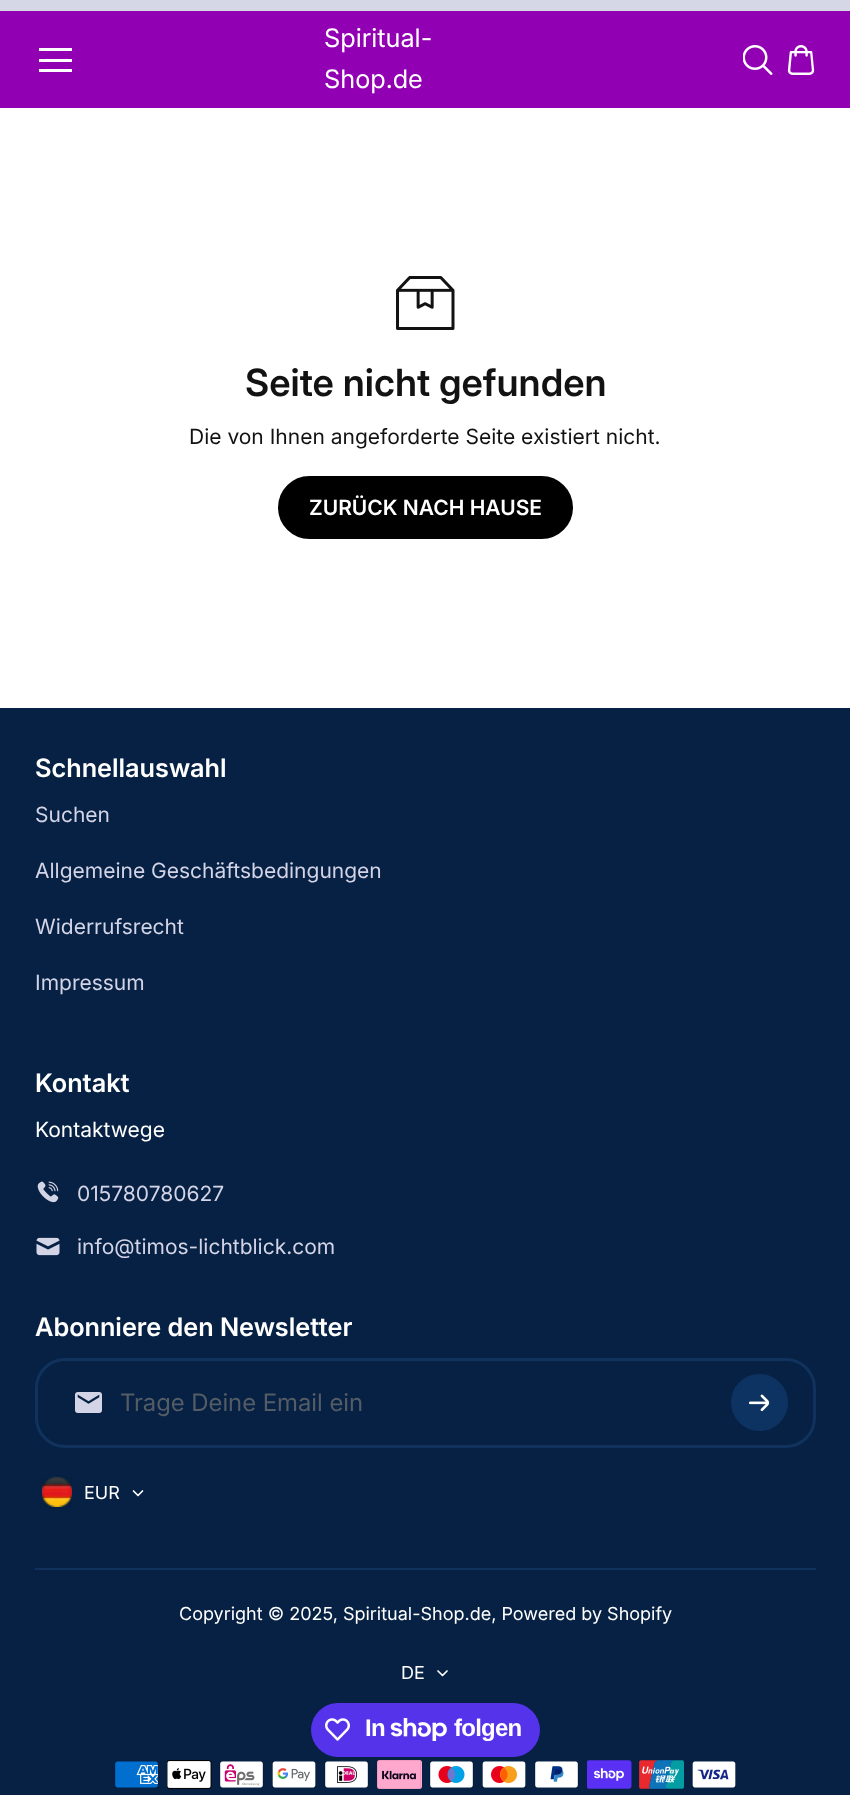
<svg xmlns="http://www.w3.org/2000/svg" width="850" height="1795">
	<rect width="100%" height="100%" fill="#FFFFFF" />
	<rect x="0" y="0" width="850" height="11" fill="#D6D7E6" />
	<rect x="0" y="11" width="850" height="97" fill="#9100B2" />
	<rect x="39" y="48" width="33" height="3" fill="#FFFFFF" />
	<rect x="39" y="59" width="33" height="3" fill="#FFFFFF" />
	<rect x="39" y="69" width="33" height="3" fill="#FFFFFF" />
	<g font-family="'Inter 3'" font-size="25.5" fill="#FFFFFF">
		<text x="324" y="47">Spiritual-</text>
		<text x="324" y="88">Shop.de</text>
	</g>
	<image x="743" y="45" width="30" height="30" href="assets/img1.png" />
	<image x="787" y="45" width="28" height="30" href="assets/img2.png" />
	<image x="396" y="276" width="59" height="54" href="assets/img3.png" />
	<text x="245" y="396" font-family="Inter" font-size="37.5" font-weight="600" fill="#121212">Seite nicht gefunden</text>
	<text x="189" y="444" font-family="Inter" font-size="21" fill="#121212">Die von Ihnen angeforderte Seite existiert nicht.</text>
	<rect x="279" y="477" width="293" height="61" rx="30.5" fill="#000000" stroke="#000000" stroke-width="2" />
	<text x="309" y="515" font-family="'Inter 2'" font-size="21" font-weight="600" fill="#FFFFFF">ZURÜCK NACH HAUSE</text>
	<rect x="0" y="708" width="850" height="1087" fill="#062143" />
	<text x="35" y="777" font-family="'Inter 3'" font-size="25.5" font-weight="600" fill="#FFFFFF">Schnellauswahl</text>
	<g font-family="Inter" font-size="21" fill="#D4D4E7">
		<text x="35" y="822">Suchen</text>
		<text x="35" y="878">Allgemeine Geschäftsbedingungen</text>
		<text x="35" y="934">Widerrufsrecht</text>
		<text x="35" y="990">Impressum</text>
	</g>
	<text x="35" y="1092" font-family="'Inter 3'" font-size="25.5" font-weight="600" fill="#FFFFFF">Kontakt</text>
	<text x="35" y="1137" font-family="Inter" font-size="21" fill="#FFFFFF">Kontaktwege</text>
	<image x="37" y="1181" width="22" height="22" href="assets/img4.png" />
	<text x="77" y="1201" font-family="Inter" font-size="21" fill="#D4D4E7">015780780627</text>
	<image x="36" y="1237" width="24" height="19" href="assets/img5.png" />
	<text x="77" y="1254" font-family="Inter" font-size="21" fill="#D4D4E7">info@timos-lichtblick.com</text>
	<text x="35" y="1336" font-family="'Inter 3'" font-size="25.5" font-weight="600" fill="#FFFFFF">Abonniere den Newsletter</text>
	<rect x="36.5" y="1359.5" width="778" height="87" rx="28.5" fill="none" stroke="#10325C" stroke-width="3" />
	<image x="75" y="1392" width="27" height="21" href="assets/img6.png" />
	<text x="120" y="1411" font-family="'Inter 2'" font-size="24" fill="#545C66">Trage Deine Email ein</text>
	<circle cx="759.5" cy="1402.5" r="27.5" fill="#0D3362" stroke="#0D3362" stroke-width="2" />
	<image x="749" y="1394" width="21" height="18" href="assets/img7.png" />
	<image x="42" y="1477" width="30" height="31" href="assets/img8.png" />
	<text x="84" y="1499" font-family="Inter" font-size="18" fill="#FFFFFF">EUR</text>
	<path d="M142.5 1491L138 1495.5L133.5 1491" fill="none" stroke="#FFFFFF" stroke-width="1.7" stroke-linecap="round" stroke-linejoin="round" />
	<rect x="35" y="1568" width="781" height="2" fill="#10325C" />
	<g font-family="Inter" font-size="18" fill="#FFFFFF">
		<text x="179" y="1620">Copyright © 2025, Spiritual-Shop.de, Powered by Shopify</text>
		<text x="401" y="1679">DE</text>
	</g>
	<path d="M447 1671L442.5 1675.5L438 1671" fill="none" stroke="#FFFFFF" stroke-width="1.7" stroke-linecap="round" stroke-linejoin="round" />
	<rect x="311" y="1703" width="229" height="54" rx="27" fill="#5433EB" />
	<image x="325" y="1718" width="25" height="23" href="assets/img9.png" />
	<text x="365" y="1736" font-family="Liberation Sans" font-size="24" font-weight="700" letter-spacing="-0.75" fill="#FFFFFF">In</text>
	<image x="390" y="1718" width="57" height="23" href="assets/img10.png" />
	<text x="454" y="1736" font-family="Liberation Sans" font-size="24" font-weight="700" letter-spacing="-0.75" fill="#FFFFFF">folgen</text>
	<image x="114" y="1761" width="45" height="27" href="assets/img11.png" />
	<image x="167" y="1760" width="45" height="29" href="assets/img12.png" />
	<image x="219" y="1761" width="45" height="27" href="assets/img13.png" />
	<image x="272" y="1761" width="44" height="27" href="assets/img14.png" />
	<image x="324" y="1761" width="45" height="27" href="assets/img15.png" />
	<image x="377" y="1760" width="45" height="29" href="assets/img16.png" />
	<image x="429" y="1761" width="45" height="27" href="assets/img17.png" />
	<image x="482" y="1761" width="44" height="27" href="assets/img18.png" />
	<image x="534" y="1761" width="45" height="27" href="assets/img19.png" />
	<image x="587" y="1760" width="45" height="29" href="assets/img20.png" />
	<image x="639" y="1760" width="45" height="29" href="assets/img21.png" />
	<image x="692" y="1761" width="44" height="27" href="assets/img22.png" />
</svg>
